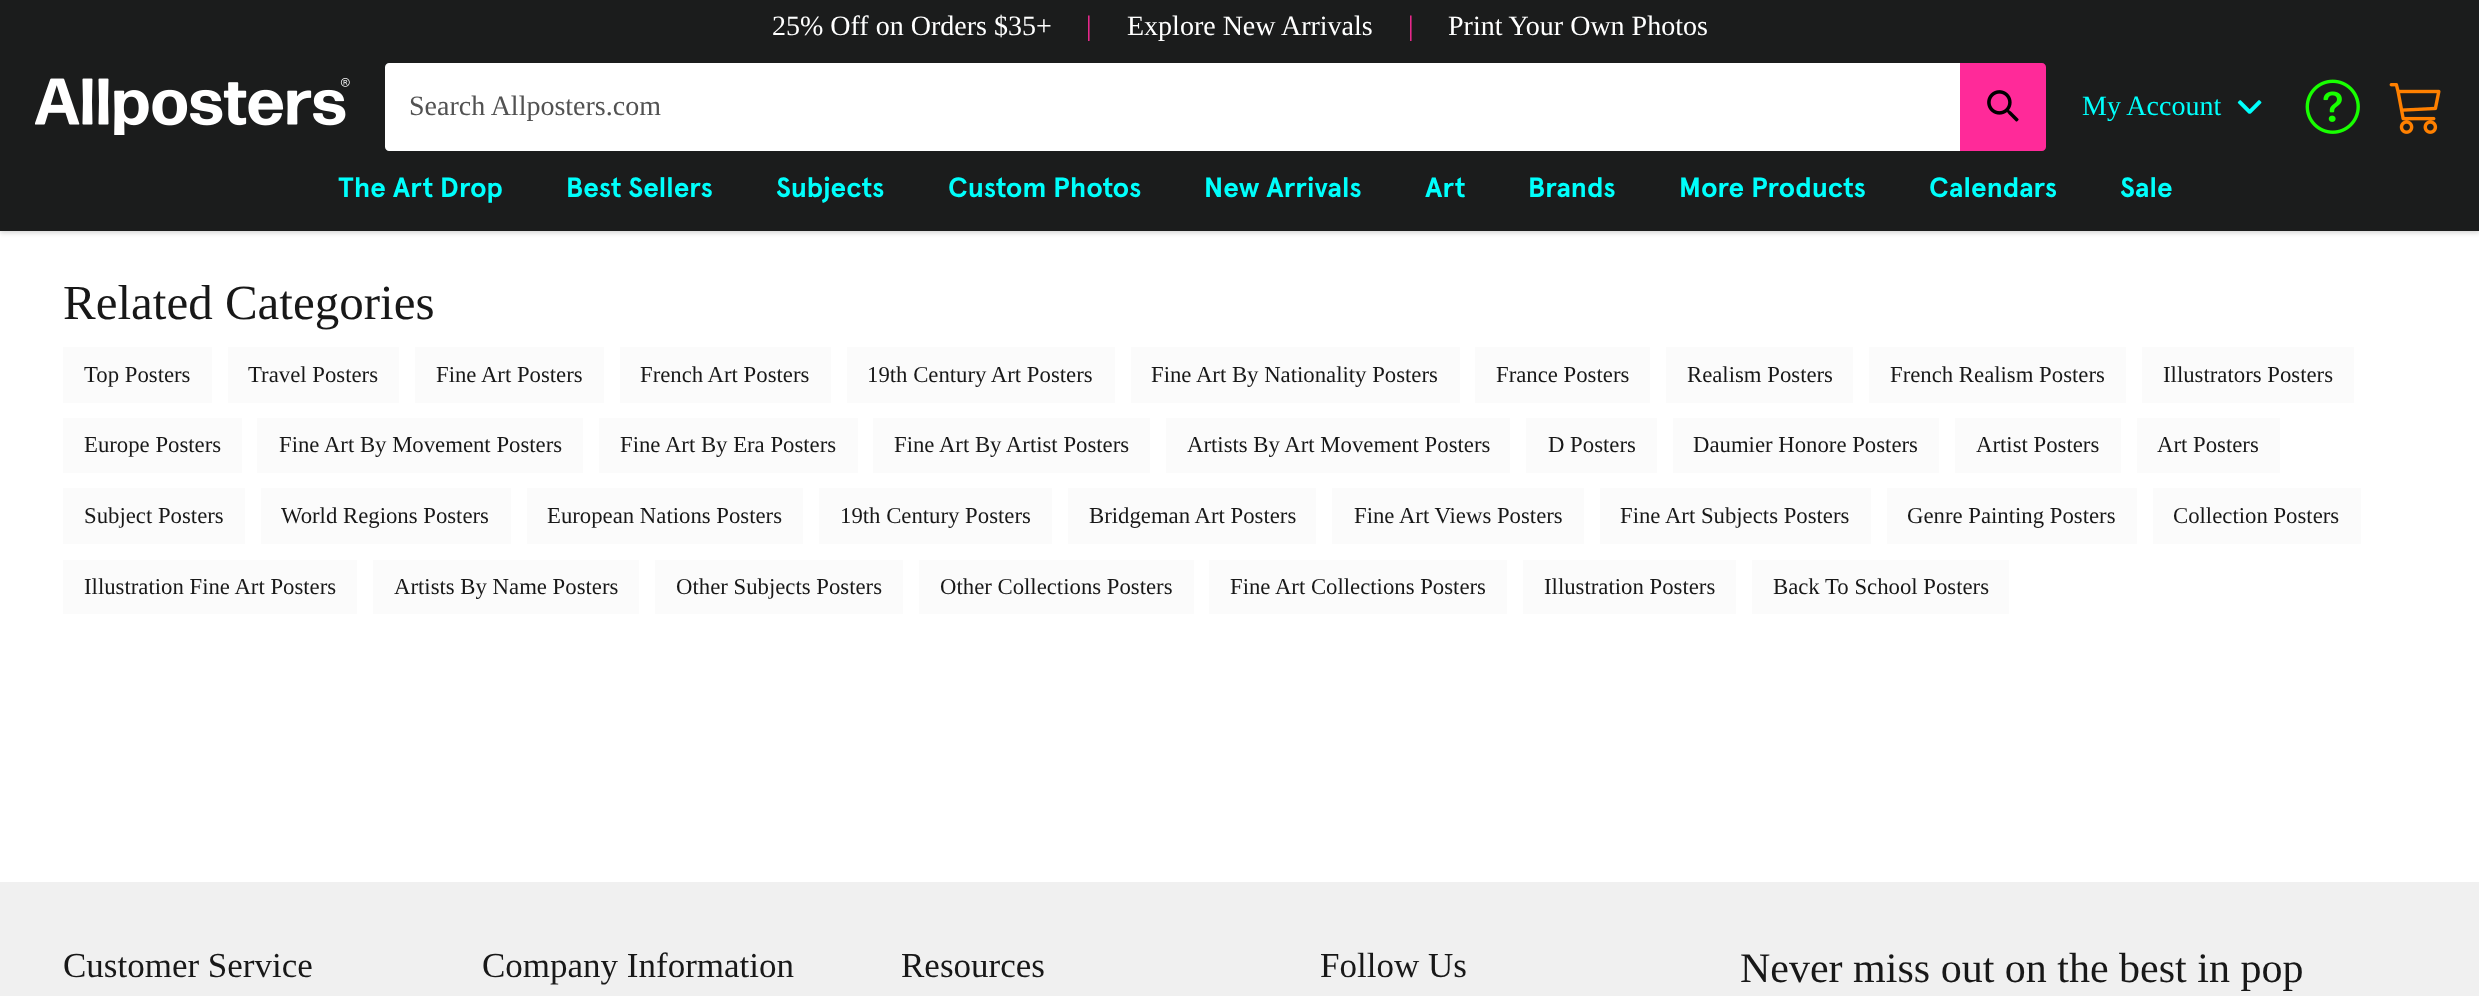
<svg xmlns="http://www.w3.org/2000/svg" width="2479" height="996">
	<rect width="100%" height="100%" fill="#FFFFFF" />
	<rect x="0" y="54" width="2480" height="179" fill="#000000" fill-opacity="0.06" filter="blur(2px)" />
	<rect x="0" y="54" width="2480" height="179" fill="#000000" fill-opacity="0.1" filter="blur(2.5px)" />
	<rect x="0" y="0" width="2479" height="231" fill="#1B1C1C" />
	<text x="772" y="35" font-family="Liberation Serif" font-size="28" fill="#FFFFFF">25% Off on Orders $35+</text>
	<text x="1086" y="35" font-family="Liberation Serif" font-size="28" fill="#FF2A99">|</text>
	<text x="1127" y="35" font-family="Liberation Serif" font-size="28" fill="#FFFFFF">Explore New Arrivals</text>
	<text x="1408" y="35" font-family="Liberation Serif" font-size="28" fill="#FF2A99">|</text>
	<text x="1448" y="35" font-family="Liberation Serif" font-size="28" fill="#FFFFFF">Print Your Own Photos</text>
	<image x="35" y="78" width="315" height="57" href="assets/img1.png" />
	<path d="M389 63H1960V151H389C387 151 385 149 385 147V67C385 65 387 63 389 63Z" fill="#FFFFFF" />
	<text x="409" y="115" font-family="Liberation Serif" font-size="28" fill="#525252">Search Allposters.com</text>
	<path d="M1960 63H2042C2044 63 2046 65 2046 67V147C2046 149 2044 151 2042 151H1960Z" fill="#FF2A99" />
	<image x="1987" y="90" width="32" height="32" href="assets/img2.png" />
	<text x="2082" y="115" font-family="Liberation Serif" font-size="28" fill="#00FFFC">My Account</text>
	<image x="2237" y="100" width="25" height="14" href="assets/img3.png" />
	<image x="2305" y="79" width="55" height="55" href="assets/img4.png" />
	<image x="2389" y="83" width="52" height="51" href="assets/img5.png" />
	<g font-family="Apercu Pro" font-size="28" font-weight="700" fill="#00FFFC">
		<text x="338" y="197">The Art Drop</text>
		<text x="566" y="197">Best Sellers</text>
		<text x="776" y="197">Subjects</text>
		<text x="948" y="197">Custom Photos</text>
		<text x="1204" y="197">New Arrivals</text>
		<text x="1425" y="197">Art</text>
		<text x="1528" y="197">Brands</text>
		<text x="1679" y="197">More Products</text>
		<text x="1929" y="197">Calendars</text>
		<text x="2120" y="197">Sale</text>
	</g>
	<text x="63" y="319" font-family="Liberation Serif" font-size="49" fill="#181818">Related Categories</text>
	<rect x="63" y="347" width="149" height="56" fill="#FBFBFB" />
	<text x="84" y="382" font-family="Liberation Serif" font-size="22.75" fill="#181818">Top Posters</text>
	<rect x="228" y="347" width="171" height="56" fill="#FBFBFB" />
	<text x="248" y="382" font-family="Liberation Serif" font-size="22.75" fill="#181818">Travel Posters</text>
	<rect x="415" y="347" width="189" height="56" fill="#FBFBFB" />
	<text x="436" y="382" font-family="Liberation Serif" font-size="22.75" fill="#181818">Fine Art Posters</text>
	<rect x="620" y="347" width="211" height="56" fill="#FBFBFB" />
	<text x="640" y="382" font-family="Liberation Serif" font-size="22.75" fill="#181818">French Art Posters</text>
	<rect x="847" y="347" width="268" height="56" fill="#FBFBFB" />
	<text x="867" y="382" font-family="Liberation Serif" font-size="22.75" fill="#181818">19th Century Art Posters</text>
	<rect x="1131" y="347" width="329" height="56" fill="#FBFBFB" />
	<text x="1151" y="382" font-family="Liberation Serif" font-size="22.75" fill="#181818">Fine Art By Nationality Posters</text>
	<rect x="1475" y="347" width="175" height="56" fill="#FBFBFB" />
	<text x="1496" y="382" font-family="Liberation Serif" font-size="22.75" fill="#181818">France Posters</text>
	<rect x="1666" y="347" width="187" height="56" fill="#FBFBFB" />
	<text x="1687" y="382" font-family="Liberation Serif" font-size="22.75" fill="#181818">Realism Posters</text>
	<rect x="1869" y="347" width="257" height="56" fill="#FBFBFB" />
	<text x="1890" y="382" font-family="Liberation Serif" font-size="22.75" fill="#181818">French Realism Posters</text>
	<rect x="2142" y="347" width="212" height="56" fill="#FBFBFB" />
	<text x="2163" y="382" font-family="Liberation Serif" font-size="22.75" fill="#181818">Illustrators Posters</text>
	<rect x="63" y="418" width="179" height="55" fill="#FBFBFB" />
	<text x="84" y="452" font-family="Liberation Serif" font-size="22.75" fill="#181818">Europe Posters</text>
	<rect x="257" y="418" width="326" height="55" fill="#FBFBFB" />
	<text x="279" y="452" font-family="Liberation Serif" font-size="22.75" fill="#181818">Fine Art By Movement Posters</text>
	<rect x="599" y="418" width="259" height="55" fill="#FBFBFB" />
	<text x="620" y="452" font-family="Liberation Serif" font-size="22.75" fill="#181818">Fine Art By Era Posters</text>
	<rect x="873" y="418" width="277" height="55" fill="#FBFBFB" />
	<text x="894" y="452" font-family="Liberation Serif" font-size="22.75" fill="#181818">Fine Art By Artist Posters</text>
	<rect x="1166" y="418" width="344" height="55" fill="#FBFBFB" />
	<text x="1187" y="452" font-family="Liberation Serif" font-size="22.75" fill="#181818">Artists By Art Movement Posters</text>
	<rect x="1526" y="418" width="131" height="55" fill="#FBFBFB" />
	<text x="1548" y="452" font-family="Liberation Serif" font-size="22.75" fill="#181818">D Posters</text>
	<rect x="1673" y="418" width="266" height="55" fill="#FBFBFB" />
	<text x="1693" y="452" font-family="Liberation Serif" font-size="22.75" fill="#181818">Daumier Honore Posters</text>
	<rect x="1955" y="418" width="166" height="55" fill="#FBFBFB" />
	<text x="1976" y="452" font-family="Liberation Serif" font-size="22.75" fill="#181818">Artist Posters</text>
	<rect x="2137" y="418" width="143" height="55" fill="#FBFBFB" />
	<text x="2157" y="452" font-family="Liberation Serif" font-size="22.75" fill="#181818">Art Posters</text>
	<rect x="63" y="488" width="182" height="56" fill="#FBFBFB" />
	<text x="84" y="523" font-family="Liberation Serif" font-size="22.75" fill="#181818">Subject Posters</text>
	<rect x="261" y="488" width="250" height="56" fill="#FBFBFB" />
	<text x="281" y="523" font-family="Liberation Serif" font-size="22.75" fill="#181818">World Regions Posters</text>
	<rect x="527" y="488" width="276" height="56" fill="#FBFBFB" />
	<text x="547" y="523" font-family="Liberation Serif" font-size="22.75" fill="#181818">European Nations Posters</text>
	<rect x="819" y="488" width="233" height="56" fill="#FBFBFB" />
	<text x="840" y="523" font-family="Liberation Serif" font-size="22.75" fill="#181818">19th Century Posters</text>
	<rect x="1068" y="488" width="248" height="56" fill="#FBFBFB" />
	<text x="1089" y="523" font-family="Liberation Serif" font-size="22.75" fill="#181818">Bridgeman Art Posters</text>
	<rect x="1332" y="488" width="252" height="56" fill="#FBFBFB" />
	<text x="1354" y="523" font-family="Liberation Serif" font-size="22.75" fill="#181818">Fine Art Views Posters</text>
	<rect x="1600" y="488" width="271" height="56" fill="#FBFBFB" />
	<text x="1620" y="523" font-family="Liberation Serif" font-size="22.75" fill="#181818">Fine Art Subjects Posters</text>
	<rect x="1887" y="488" width="250" height="56" fill="#FBFBFB" />
	<text x="1907" y="523" font-family="Liberation Serif" font-size="22.75" fill="#181818">Genre Painting Posters</text>
	<rect x="2153" y="488" width="208" height="56" fill="#FBFBFB" />
	<text x="2173" y="523" font-family="Liberation Serif" font-size="22.75" fill="#181818">Collection Posters</text>
	<rect x="63" y="560" width="294" height="54" fill="#FBFBFB" />
	<text x="84" y="594" font-family="Liberation Serif" font-size="22.75" fill="#181818">Illustration Fine Art Posters</text>
	<rect x="373" y="560" width="266" height="54" fill="#FBFBFB" />
	<text x="394" y="594" font-family="Liberation Serif" font-size="22.75" fill="#181818">Artists By Name Posters</text>
	<rect x="655" y="560" width="248" height="54" fill="#FBFBFB" />
	<text x="676" y="594" font-family="Liberation Serif" font-size="22.75" fill="#181818">Other Subjects Posters</text>
	<rect x="919" y="560" width="275" height="54" fill="#FBFBFB" />
	<text x="940" y="594" font-family="Liberation Serif" font-size="22.75" fill="#181818">Other Collections Posters</text>
	<rect x="1209" y="560" width="298" height="54" fill="#FBFBFB" />
	<text x="1230" y="594" font-family="Liberation Serif" font-size="22.75" fill="#181818">Fine Art Collections Posters</text>
	<rect x="1523" y="560" width="213" height="54" fill="#FBFBFB" />
	<text x="1544" y="594" font-family="Liberation Serif" font-size="22.75" fill="#181818">Illustration Posters</text>
	<rect x="1752" y="560" width="257" height="54" fill="#FBFBFB" />
	<text x="1773" y="594" font-family="Liberation Serif" font-size="22.75" fill="#181818">Back To School Posters</text>
	<rect x="0" y="882" width="2479" height="114" fill="#F0F0F0" />
	<g font-family="Liberation Serif" font-size="35" fill="#181818">
		<text x="63" y="977">Customer Service</text>
		<text x="482" y="977">Company Information</text>
		<text x="901" y="977">Resources</text>
		<text x="1320" y="977">Follow Us</text>
	</g>
	<text x="1740" y="982" font-family="Liberation Serif" font-size="42" fill="#181818">Never miss out on the best in pop</text>
</svg>
